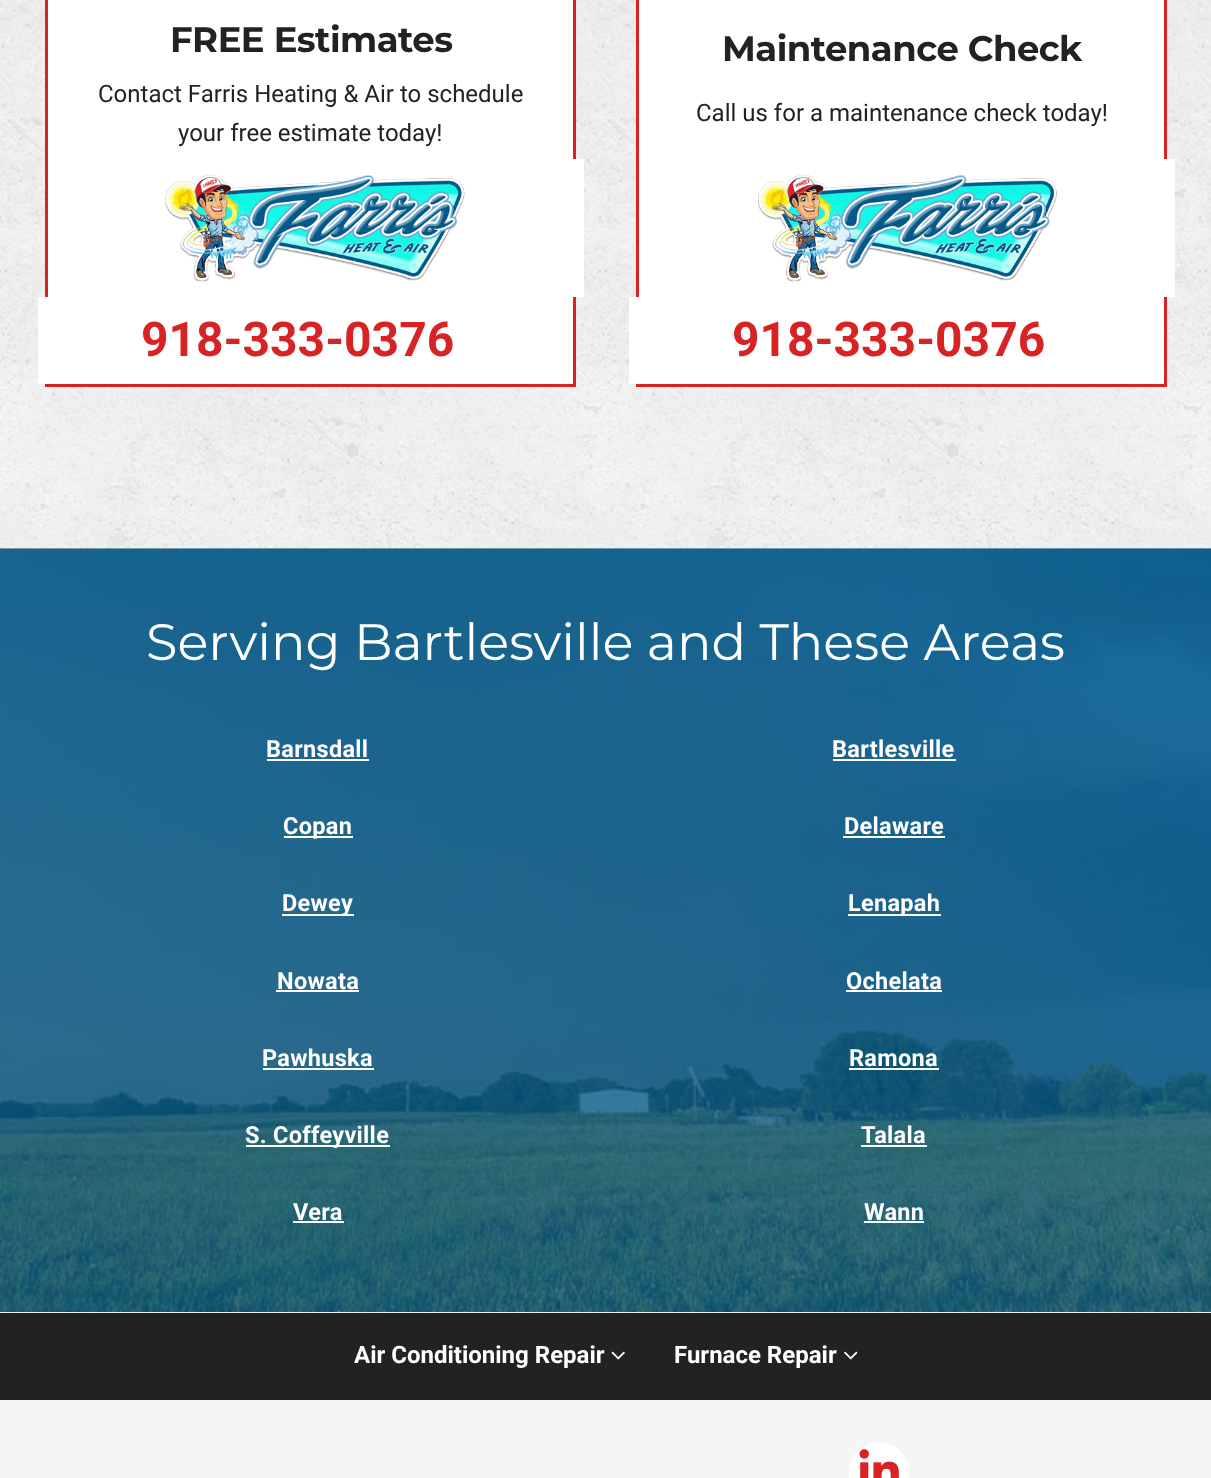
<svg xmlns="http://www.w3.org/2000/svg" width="1211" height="1478">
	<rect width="100%" height="100%" fill="#FFFFFF" />
	<image x="0" y="0" width="1211" height="1313" href="assets/img1.png" />
	<rect x="48" y="0" width="525" height="159" fill="#FFFFFF" />
	<rect x="46.5" y="-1.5" width="528" height="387" fill="none" stroke="#D72324" stroke-width="3" />
	<text x="170" y="52" font-family="Montserrat" font-size="35.4" font-weight="700" letter-spacing="-0.5" fill="#222222">FREE Estimates</text>
	<g font-family="Roboto" font-size="24" fill="#222222">
		<text x="98" y="102">Contact Farris Heating &amp; Air to schedule</text>
		<text x="178" y="141">your free estimate today!</text>
	</g>
	<rect x="48" y="159" width="536" height="138" fill="#FFFFFF" />
	<image x="165" y="174" width="300" height="108" href="assets/img2.png" />
	<rect x="38" y="297" width="535" height="87" fill="#FFFFFF" />
	<text x="141" y="356" font-family="Roboto" font-size="48" font-weight="700" fill="#D72324">918-333-0376</text>
	<rect x="639" y="0" width="525" height="159" fill="#FFFFFF" />
	<rect x="637.5" y="-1.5" width="528" height="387" fill="none" stroke="#D72324" stroke-width="3" />
	<text x="722" y="61" font-family="Montserrat" font-size="35.4" font-weight="700" letter-spacing="-0.5" fill="#222222">Maintenance Check</text>
	<text x="696" y="121" font-family="Roboto" font-size="24" fill="#222222">Call us for a maintenance check today!</text>
	<rect x="639" y="159" width="536" height="138" fill="#FFFFFF" />
	<image x="758" y="174" width="299" height="108" href="assets/img3.png" />
	<rect x="629" y="297" width="535" height="87" fill="#FFFFFF" />
	<text x="732" y="356" font-family="Roboto" font-size="48" font-weight="700" fill="#D72324">918-333-0376</text>
	<image x="0" y="548" width="1211" height="764" href="assets/img4.png" />
	<text x="146" y="660" font-family="Montserrat" font-size="51.1" fill="#FFFFFF">Serving Bartlesville and These Areas</text>
	<text x="266" y="757" font-family="Roboto" font-size="23.5" font-weight="700" letter-spacing="0.3" fill="#FFFFFF">Barnsdall</text>
	<rect x="267" y="759" width="102" height="2" fill="#FFFFFF" />
	<text x="832" y="757" font-family="Roboto" font-size="23.5" font-weight="700" letter-spacing="0.3" fill="#FFFFFF">Bartlesville</text>
	<rect x="833" y="759" width="123" height="2" fill="#FFFFFF" />
	<rect x="284" y="836" width="69" height="2" fill="#FFFFFF" />
	<g font-family="Roboto" font-size="23.5" font-weight="700" letter-spacing="0.3" fill="#FFFFFF">
		<text x="283" y="834">Copan</text>
		<text x="844" y="834">Delaware</text>
	</g>
	<rect x="843" y="836" width="102" height="2" fill="#FFFFFF" />
	<rect x="282" y="914" width="72" height="2" fill="#FFFFFF" />
	<text x="282" y="911" font-family="Roboto" font-size="23.5" font-weight="700" letter-spacing="0.3" fill="#FFFFFF">Dewey</text>
	<rect x="848" y="914" width="93" height="2" fill="#FFFFFF" />
	<g font-family="Roboto" font-size="23.5" font-weight="700" letter-spacing="0.3" fill="#FFFFFF">
		<text x="848" y="911">Lenapah</text>
		<text x="277" y="989">Nowata</text>
	</g>
	<rect x="276" y="990" width="83" height="2" fill="#FFFFFF" />
	<text x="846" y="989" font-family="Roboto" font-size="23.5" font-weight="700" letter-spacing="0.3" fill="#FFFFFF">Ochelata</text>
	<rect x="846" y="990" width="96" height="2" fill="#FFFFFF" />
	<text x="262" y="1066" font-family="Roboto" font-size="23.5" font-weight="700" letter-spacing="0.3" fill="#FFFFFF">Pawhuska</text>
	<rect x="263" y="1068" width="111" height="2" fill="#FFFFFF" />
	<text x="849" y="1066" font-family="Roboto" font-size="23.5" font-weight="700" letter-spacing="0.3" fill="#FFFFFF">Ramona</text>
	<rect x="849" y="1068" width="90" height="2" fill="#FFFFFF" />
	<rect x="246" y="1145" width="144" height="2" fill="#FFFFFF" />
	<g font-family="Roboto" font-size="23.5" font-weight="700" letter-spacing="0.3" fill="#FFFFFF">
		<text x="245" y="1143">S. Coffeyville</text>
		<text x="861" y="1143">Talala</text>
	</g>
	<rect x="861" y="1145" width="66" height="2" fill="#FFFFFF" />
	<text x="293" y="1220" font-family="Roboto" font-size="23.5" font-weight="700" letter-spacing="0.3" fill="#FFFFFF">Vera</text>
	<rect x="293" y="1221" width="51" height="2" fill="#FFFFFF" />
	<text x="864" y="1220" font-family="Roboto" font-size="23.5" font-weight="700" letter-spacing="0.3" fill="#FFFFFF">Wann</text>
	<rect x="864" y="1221" width="60" height="2" fill="#FFFFFF" />
	<rect x="0" y="1313" width="1211" height="87" fill="#222222" />
	<text x="354" y="1363" font-family="Roboto" font-size="24" font-weight="700" fill="#FFFFFF">Air Conditioning Repair</text>
	<image x="611" y="1351" width="14" height="9" href="assets/img5.png" />
	<text x="674" y="1363" font-family="Roboto" font-size="24" font-weight="700" fill="#FFFFFF">Furnace Repair</text>
	<image x="844" y="1351" width="14" height="9" href="assets/img6.png" />
	<rect x="0" y="1400" width="1211" height="78" fill="#F5F5F5" />
	<circle cx="879" cy="1472" r="30" fill="#FFFFFF" />
	<image x="859" y="1449" width="40" height="29" href="assets/img7.png" />
</svg>
